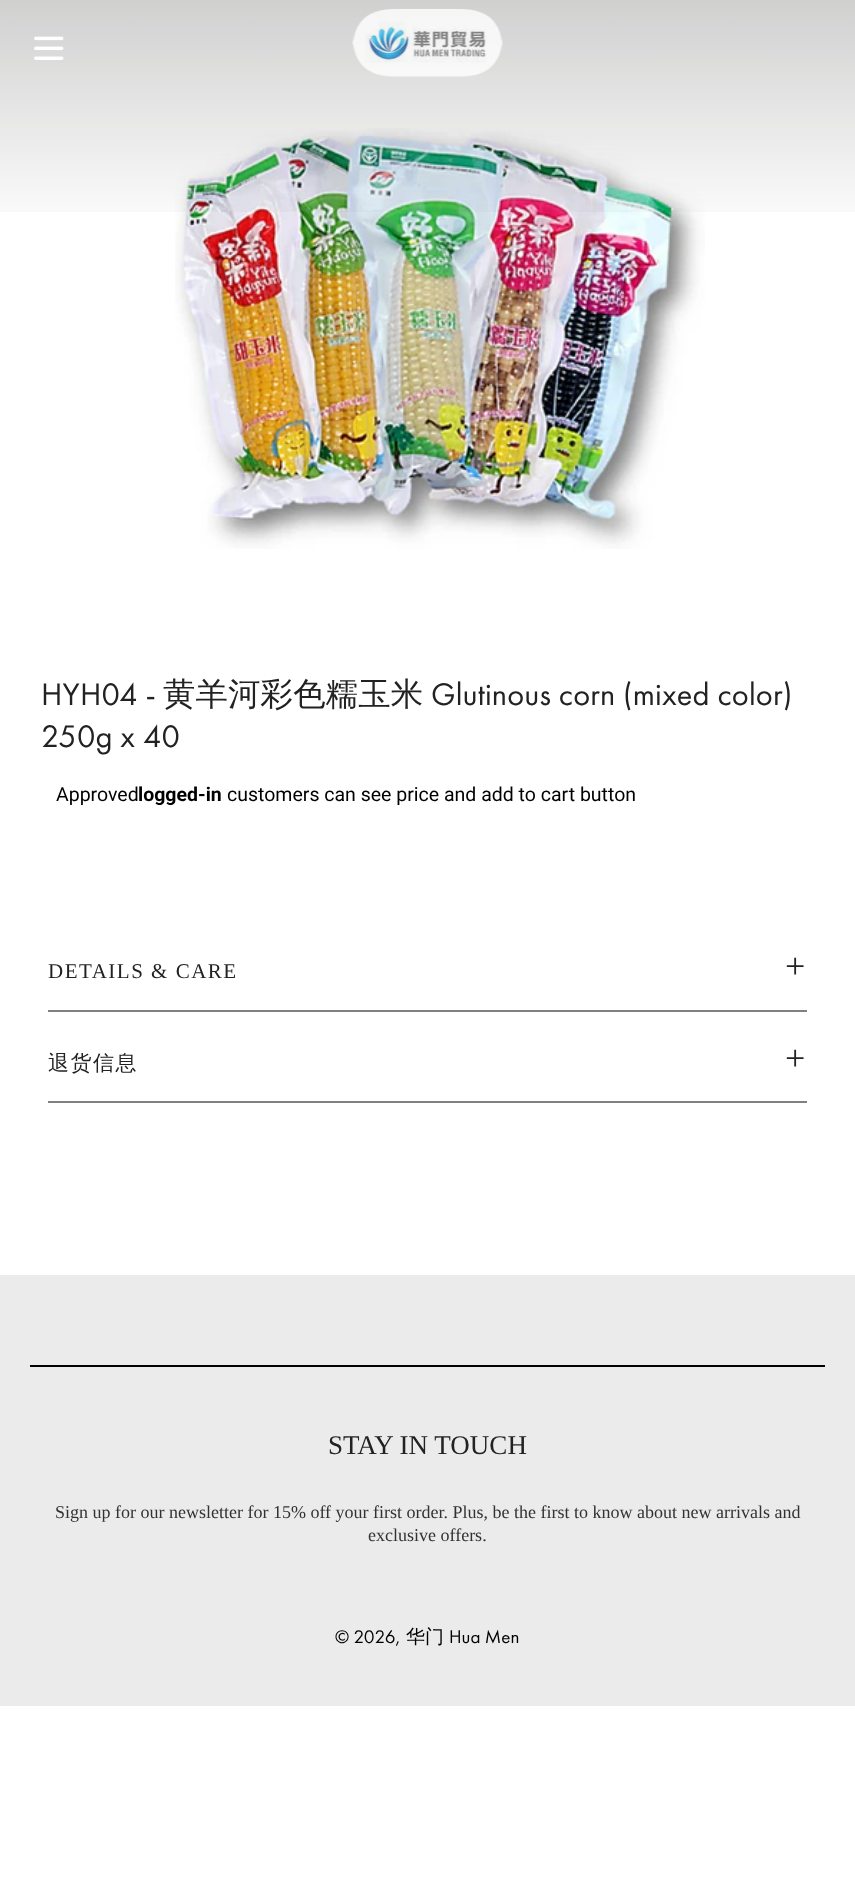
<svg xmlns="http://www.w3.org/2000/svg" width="855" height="1888">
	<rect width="100%" height="100%" fill="#FFFFFF" />
	<image x="175" y="128" width="530" height="421" href="assets/img4.png" />
	<image x="0" y="0" width="855" height="212" href="assets/img1.png" />
	<image x="34" y="36" width="30" height="24" href="assets/img2.png" />
	<image x="352" y="9" width="151" height="68" href="assets/img3.png" />
	<text x="41" y="705" font-family="Futura PT" font-size="32.4" letter-spacing="0.15" fill="#222222">HYH04 -</text>
	<text x="163" y="705" font-family="WenQuanYi Zen Hei" font-size="32.4" font-weight="500" letter-spacing="0.15" fill="#222222">黄羊河彩色糯玉米</text>
	<g font-family="Futura PT" font-size="32.4" letter-spacing="0.15" fill="#222222">
		<text x="431" y="705">Glutinous corn (mixed color)</text>
		<text x="41" y="747">250g x 40</text>
	</g>
	<text x="56" y="801" font-family="Roboto" font-size="19.5" fill="#000000">Approved</text>
	<text x="138" y="801" font-family="Roboto" font-size="19.5" font-weight="700" fill="#000000">logged-in</text>
	<text x="227" y="801" font-family="Roboto" font-size="19.5" fill="#000000">customers can see price and add to cart button</text>
	<rect x="48" y="1010" width="759" height="2" fill="#808080" />
	<text x="48" y="978" font-family="Liberation Serif" font-size="21" letter-spacing="1.5" fill="#222222">DETAILS &amp; CARE</text>
	<text x="785" y="978" font-family="Liberation Serif" font-size="36" letter-spacing="1.5" fill="#222222">+</text>
	<rect x="48" y="1101" width="759" height="2" fill="#808080" />
	<text x="48" y="1070" font-family="WenQuanYi Zen Hei" font-size="21" font-weight="500" letter-spacing="1.5" fill="#222222">退货信息</text>
	<text x="785" y="1070" font-family="Liberation Serif" font-size="36" letter-spacing="1.5" fill="#222222">+</text>
	<rect x="0" y="1275" width="855" height="431" fill="#EBEBEB" />
	<rect x="30" y="1365" width="795" height="2" fill="#000000" />
	<text x="328" y="1454" font-family="Liberation Serif" font-size="27" fill="#222222">STAY IN TOUCH</text>
	<g font-family="Liberation Serif" font-size="18" fill="#333232">
		<text x="55" y="1518">Sign up for our newsletter for 15% off your first order. Plus, be the first to know about new arrivals and</text>
		<text x="368" y="1541">exclusive offers.</text>
	</g>
	<text x="335" y="1643" font-family="Futura PT" font-size="19" fill="#000000">© 2026,</text>
	<text x="406" y="1643" font-family="WenQuanYi Zen Hei" font-size="19" font-weight="500" fill="#000000">华门</text>
	<text x="449" y="1643" font-family="Futura PT" font-size="19" fill="#000000">Hua Men</text>
</svg>
